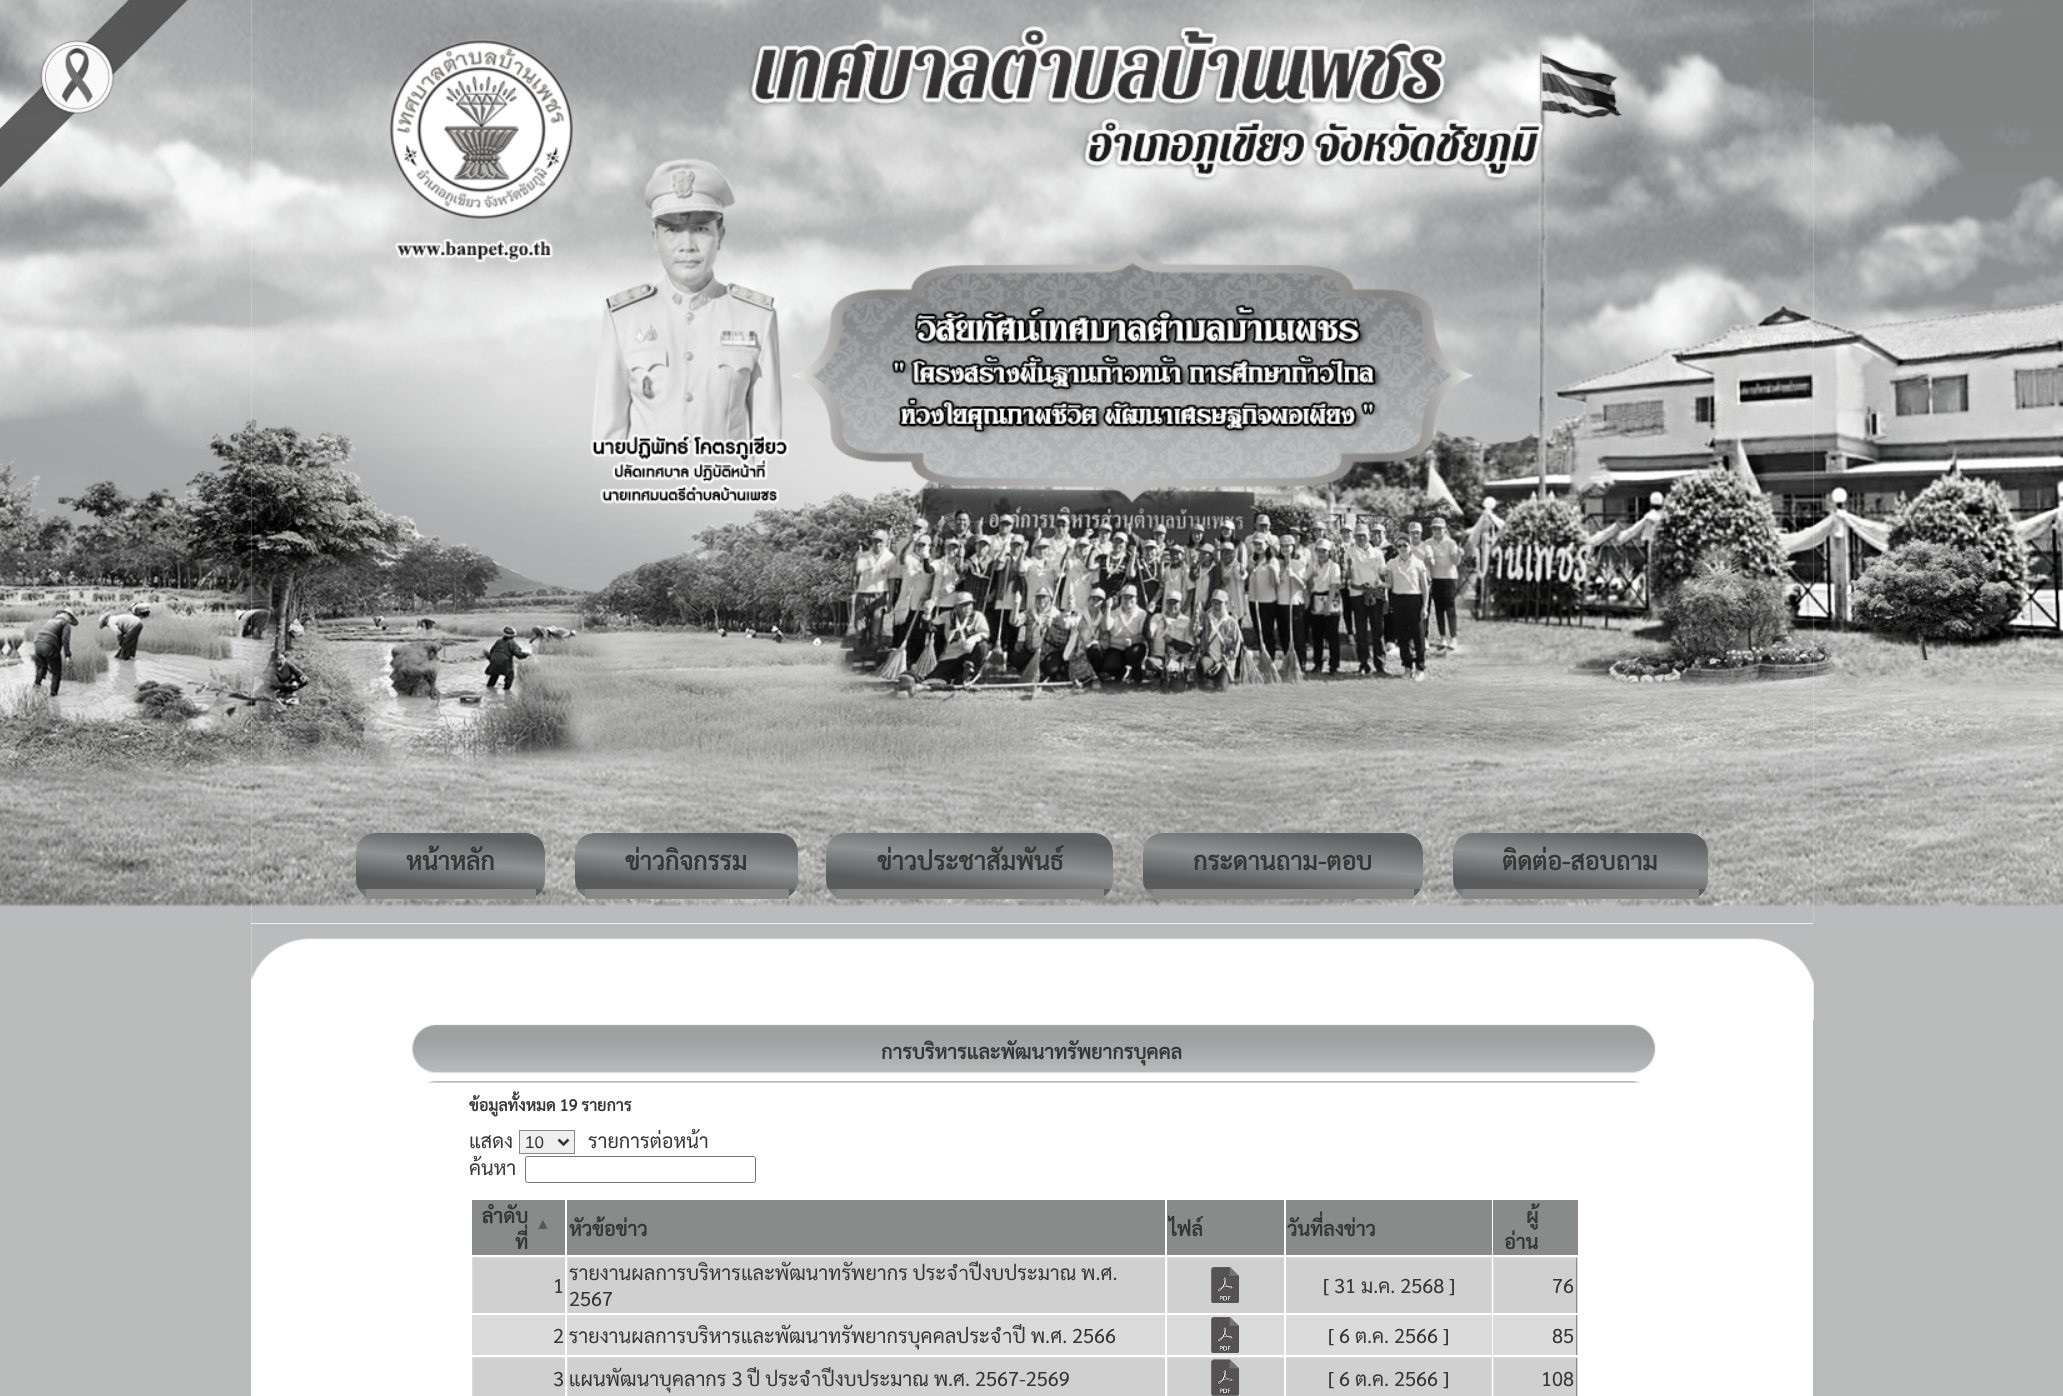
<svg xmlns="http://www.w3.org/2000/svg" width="2063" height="1396">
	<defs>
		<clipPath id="clip1"><rect x="356" y="833" width="189" height="66" rx="19" /></clipPath>
		<linearGradient id="g1" gradientUnits="userSpaceOnUse" x1="447" y1="898" x2="455" y2="823"><stop offset="0.16" stop-color="#5A5B5C" /><stop offset="0.5" stop-color="#919293" /><stop offset="0.85" stop-color="#5E5F60" /></linearGradient>
		<linearGradient id="g2" gradientUnits="userSpaceOnUse" x1="447" y1="955" x2="455" y2="879"><stop offset="0.16" stop-color="#5A5B5C" /><stop offset="0.5" stop-color="#919293" /><stop offset="0.85" stop-color="#5E5F60" /></linearGradient>
		<clipPath id="clip2"><rect x="575" y="833" width="223" height="66" rx="19" /></clipPath>
		<linearGradient id="g3" gradientUnits="userSpaceOnUse" x1="682" y1="900" x2="690" y2="821"><stop offset="0.16" stop-color="#5A5B5C" /><stop offset="0.5" stop-color="#919293" /><stop offset="0.85" stop-color="#5E5F60" /></linearGradient>
		<linearGradient id="g4" gradientUnits="userSpaceOnUse" x1="682" y1="956" x2="690" y2="877"><stop offset="0.16" stop-color="#5A5B5C" /><stop offset="0.5" stop-color="#919293" /><stop offset="0.85" stop-color="#5E5F60" /></linearGradient>
		<clipPath id="clip3"><rect x="826" y="833" width="287" height="66" rx="19" /></clipPath>
		<linearGradient id="g5" gradientUnits="userSpaceOnUse" x1="965" y1="903" x2="974" y2="818"><stop offset="0.16" stop-color="#5A5B5C" /><stop offset="0.5" stop-color="#919293" /><stop offset="0.85" stop-color="#5E5F60" /></linearGradient>
		<linearGradient id="g6" gradientUnits="userSpaceOnUse" x1="965" y1="960" x2="974" y2="874"><stop offset="0.16" stop-color="#5A5B5C" /><stop offset="0.5" stop-color="#919293" /><stop offset="0.85" stop-color="#5E5F60" /></linearGradient>
		<clipPath id="clip4"><rect x="1143" y="833" width="280" height="66" rx="19" /></clipPath>
		<linearGradient id="g7" gradientUnits="userSpaceOnUse" x1="1278" y1="903" x2="1287" y2="818"><stop offset="0.16" stop-color="#5A5B5C" /><stop offset="0.5" stop-color="#919293" /><stop offset="0.85" stop-color="#5E5F60" /></linearGradient>
		<linearGradient id="g8" gradientUnits="userSpaceOnUse" x1="1278" y1="959" x2="1287" y2="875"><stop offset="0.16" stop-color="#5A5B5C" /><stop offset="0.5" stop-color="#919293" /><stop offset="0.85" stop-color="#5E5F60" /></linearGradient>
		<clipPath id="clip5"><rect x="1453" y="833" width="255" height="66" rx="19" /></clipPath>
		<linearGradient id="g9" gradientUnits="userSpaceOnUse" x1="1576" y1="902" x2="1584" y2="820"><stop offset="0.16" stop-color="#5A5B5C" /><stop offset="0.5" stop-color="#919293" /><stop offset="0.85" stop-color="#5E5F60" /></linearGradient>
		<linearGradient id="g10" gradientUnits="userSpaceOnUse" x1="1576" y1="958" x2="1584" y2="876"><stop offset="0.16" stop-color="#5A5B5C" /><stop offset="0.5" stop-color="#919293" /><stop offset="0.85" stop-color="#5E5F60" /></linearGradient>
	</defs>
	<rect width="100%" height="100%" fill="#FFFFFF" />
	<image x="0" y="0" width="252" height="923" href="assets/img2.png" />
	<image x="0" y="0" width="188" height="188" href="assets/img1.png" />
	<image x="251" y="0" width="1563" height="923" href="assets/img3.png" />
	<image x="390" y="39" width="183" height="181" href="assets/img4.png" />
	<image x="748" y="25" width="796" height="157" href="assets/img5.png" />
	<g clip-path="url(#clip1)">
		<path d="M375 833H526C536.5 833 545 841.5 545 852V889H356V852C356 841.5 364.5 833 375 833Z" fill="url(#g1)" />
		<rect x="358" y="889" width="185" height="8" fill="url(#g2)" />
	</g>
	<rect x="366" y="889" width="170" height="10" fill="#888888" />
	<text x="406" y="870" font-family="Sarabun" font-size="25" font-weight="700" fill="#363636">หน้าหลัก</text>
	<g clip-path="url(#clip2)">
		<path d="M594 833H779C789.5 833 798 841.5 798 852V889H575V852C575 841.5 583.5 833 594 833Z" fill="url(#g3)" />
		<rect x="577" y="889" width="219" height="8" fill="url(#g4)" />
	</g>
	<rect x="585" y="889" width="204" height="10" fill="#888888" />
	<text x="625" y="870" font-family="Sarabun" font-size="25" font-weight="700" fill="#363636">ข่าวกิจกรรม</text>
	<g clip-path="url(#clip3)">
		<path d="M845 833H1094C1104.5 833 1113 841.5 1113 852V889H826V852C826 841.5 834.5 833 845 833Z" fill="url(#g5)" />
		<rect x="828" y="889" width="283" height="8" fill="url(#g6)" />
	</g>
	<rect x="836" y="889" width="268" height="10" fill="#888888" />
	<text x="877" y="870" font-family="Sarabun" font-size="25" font-weight="700" fill="#363636">ข่าวประชาสัมพันธ์</text>
	<g clip-path="url(#clip4)">
		<path d="M1162 833H1404C1414.5 833 1423 841.5 1423 852V889H1143V852C1143 841.5 1151.5 833 1162 833Z" fill="url(#g7)" />
		<rect x="1145" y="889" width="276" height="8" fill="url(#g8)" />
	</g>
	<rect x="1153" y="889" width="261" height="10" fill="#888888" />
	<text x="1193" y="870" font-family="Sarabun" font-size="25" font-weight="700" fill="#363636">กระดานถาม-ตอบ</text>
	<g clip-path="url(#clip5)">
		<path d="M1472 833H1689C1699.5 833 1708 841.5 1708 852V889H1453V852C1453 841.5 1461.5 833 1472 833Z" fill="url(#g9)" />
		<rect x="1455" y="889" width="251" height="8" fill="url(#g10)" />
	</g>
	<rect x="1463" y="889" width="236" height="10" fill="#888888" />
	<text x="1502" y="870" font-family="Sarabun" font-size="25" font-weight="700" fill="#363636">ติดต่อ-สอบถาม</text>
	<image x="1813" y="0" width="250" height="923" href="assets/img6.png" />
	<rect x="0" y="923" width="251" height="473" fill="#BABBBB" />
	<rect x="1813" y="923" width="250" height="473" fill="#BABBBB" />
	<image x="251" y="923" width="1563" height="97" href="assets/img7.png" />
	<image x="412" y="1024" width="1244" height="59" href="assets/img8.png" />
	<text x="881" y="1059" font-family="Sarabun" font-size="20" font-weight="700" fill="#363636">การบริหารและพัฒนาทรัพยากรบุคคล</text>
	<text x="469" y="1111" font-family="Sarabun" font-size="16.25" font-weight="700" fill="#363636">ข้อมูลทั้งหมด 19 รายการ</text>
	<text x="469" y="1148" font-family="Sarabun" font-size="20" fill="#363636">แสดง</text>
	<rect x="519.5" y="1130.5" width="55" height="23" fill="#EFEFEF" stroke="#888888" />
	<path d="M558.5 1139.5L563.5 1144.5L568.5 1139.5" fill="none" stroke="#363636" stroke-width="2.5" />
	<text x="525" y="1148" font-family="Liberation Sans" font-size="17" fill="#363636">10</text>
	<g font-family="Sarabun" font-size="20" fill="#363636">
		<text x="588" y="1148">รายการต่อหน้า</text>
		<text x="469" y="1175">ค้นหา</text>
	</g>
	<rect x="525.5" y="1156.5" width="230" height="26" rx="2" fill="none" stroke="#767676" />
	<rect x="472" y="1200" width="93" height="55" fill="#898A8A" />
	<text x="482" y="1223" font-family="Sarabun" font-size="20" font-weight="700" fill="#363636">ลำดับ</text>
	<text x="535" y="1229" font-family="Liberation Sans" font-size="16" fill="#575858">▲</text>
	<text x="515" y="1249" font-family="Sarabun" font-size="20" font-weight="700" fill="#363636">ที่</text>
	<rect x="567" y="1200" width="598" height="55" fill="#898A8A" />
	<text x="569" y="1236" font-family="Sarabun" font-size="20" font-weight="700" fill="#363636">หัวข้อข่าว</text>
	<rect x="1167" y="1200" width="117" height="55" fill="#898A8A" />
	<text x="1169" y="1236" font-family="Sarabun" font-size="20" font-weight="700" fill="#363636">ไฟล์</text>
	<rect x="1286" y="1200" width="206" height="55" fill="#898A8A" />
	<text x="1287" y="1236" font-family="Sarabun" font-size="20" font-weight="700" fill="#363636">วันที่ลงข่าว</text>
	<rect x="1493" y="1200" width="85" height="55" fill="#898A8A" />
	<g font-family="Sarabun" font-size="20" font-weight="700" fill="#363636">
		<text x="1526" y="1223">ผู้</text>
		<text x="1504" y="1249">อ่าน</text>
	</g>
	<rect x="472" y="1257" width="93" height="56" fill="#DBDBDC" />
	<rect x="473" y="1258" width="92" height="55" fill="#D0D0D1" />
	<text x="553" y="1293" font-family="Sarabun" font-size="20" fill="#363636">1</text>
	<rect x="567" y="1257" width="598" height="56" fill="#DBDBDC" />
	<rect x="568" y="1258" width="597" height="55" fill="#D0D0D1" />
	<g font-family="Sarabun" font-size="20" fill="#363636">
		<text x="569" y="1280">รายงานผลการบริหารและพัฒนาทรัพยากร ประจำปีงบประมาณ พ.ศ.</text>
		<text x="569" y="1306">2567</text>
	</g>
	<rect x="1167" y="1257" width="117" height="56" fill="#DBDBDC" />
	<rect x="1168" y="1258" width="116" height="55" fill="#D0D0D1" />
	<image x="1211" y="1267" width="28" height="36" href="assets/img9.png" />
	<rect x="1286" y="1257" width="206" height="56" fill="#DBDBDC" />
	<rect x="1286" y="1258" width="205" height="55" fill="#D0D0D1" />
	<text x="1323" y="1293" font-family="Sarabun" font-size="20" fill="#363636">[ 31 ม.ค. 2568 ]</text>
	<rect x="1493" y="1257" width="85" height="56" fill="#DBDBDC" />
	<rect x="1494" y="1258" width="82" height="55" fill="#D0D0D1" />
	<rect x="1576" y="1258" width="1" height="55" fill="#888888" />
	<text x="1552" y="1293" font-family="Sarabun" font-size="20" fill="#363636">76</text>
	<rect x="567" y="1315" width="598" height="40" fill="#DBDBDC" />
	<rect x="1167" y="1315" width="117" height="40" fill="#DBDBDC" />
	<image x="1211" y="1317" width="28" height="36" href="assets/img10.png" />
	<rect x="472" y="1315" width="93" height="40" fill="#DBDBDC" />
	<text x="553" y="1343" font-family="Sarabun" font-size="20" fill="#363636">2 รายงานผลการบริหารและพัฒนาทรัพยากรบุคคลประจำปี พ.ศ. 2566</text>
	<rect x="1286" y="1315" width="206" height="40" fill="#DBDBDC" />
	<text x="1328" y="1343" font-family="Sarabun" font-size="20" fill="#363636">[ 6 ต.ค. 2566 ]</text>
	<rect x="1493" y="1315" width="85" height="40" fill="#DBDBDC" />
	<rect x="1576" y="1315" width="1" height="40" fill="#888888" />
	<text x="1552" y="1343" font-family="Sarabun" font-size="20" fill="#363636">85</text>
	<rect x="567" y="1357" width="598" height="39" fill="#DBDBDC" />
	<rect x="568" y="1358" width="597" height="38" fill="#D0D0D1" />
	<rect x="1167" y="1357" width="117" height="39" fill="#DBDBDC" />
	<rect x="1168" y="1358" width="116" height="38" fill="#D0D0D1" />
	<image x="1211" y="1359" width="28" height="37" href="assets/img11.png" />
	<rect x="472" y="1357" width="93" height="39" fill="#DBDBDC" />
	<rect x="473" y="1358" width="92" height="38" fill="#D0D0D1" />
	<text x="553" y="1386" font-family="Sarabun" font-size="20" fill="#363636">3 แผนพัฒนาบุคลากร 3 ปี ประจำปีงบประมาณ พ.ศ. 2567-2569</text>
	<rect x="1286" y="1357" width="206" height="39" fill="#DBDBDC" />
	<rect x="1286" y="1358" width="205" height="38" fill="#D0D0D1" />
	<text x="1328" y="1386" font-family="Sarabun" font-size="20" fill="#363636">[ 6 ต.ค. 2566 ]</text>
	<rect x="1493" y="1357" width="85" height="39" fill="#DBDBDC" />
	<rect x="1494" y="1358" width="82" height="38" fill="#D0D0D1" />
	<rect x="1576" y="1358" width="1" height="38" fill="#888888" />
	<text x="1541" y="1386" font-family="Sarabun" font-size="20" fill="#363636">108</text>
</svg>
